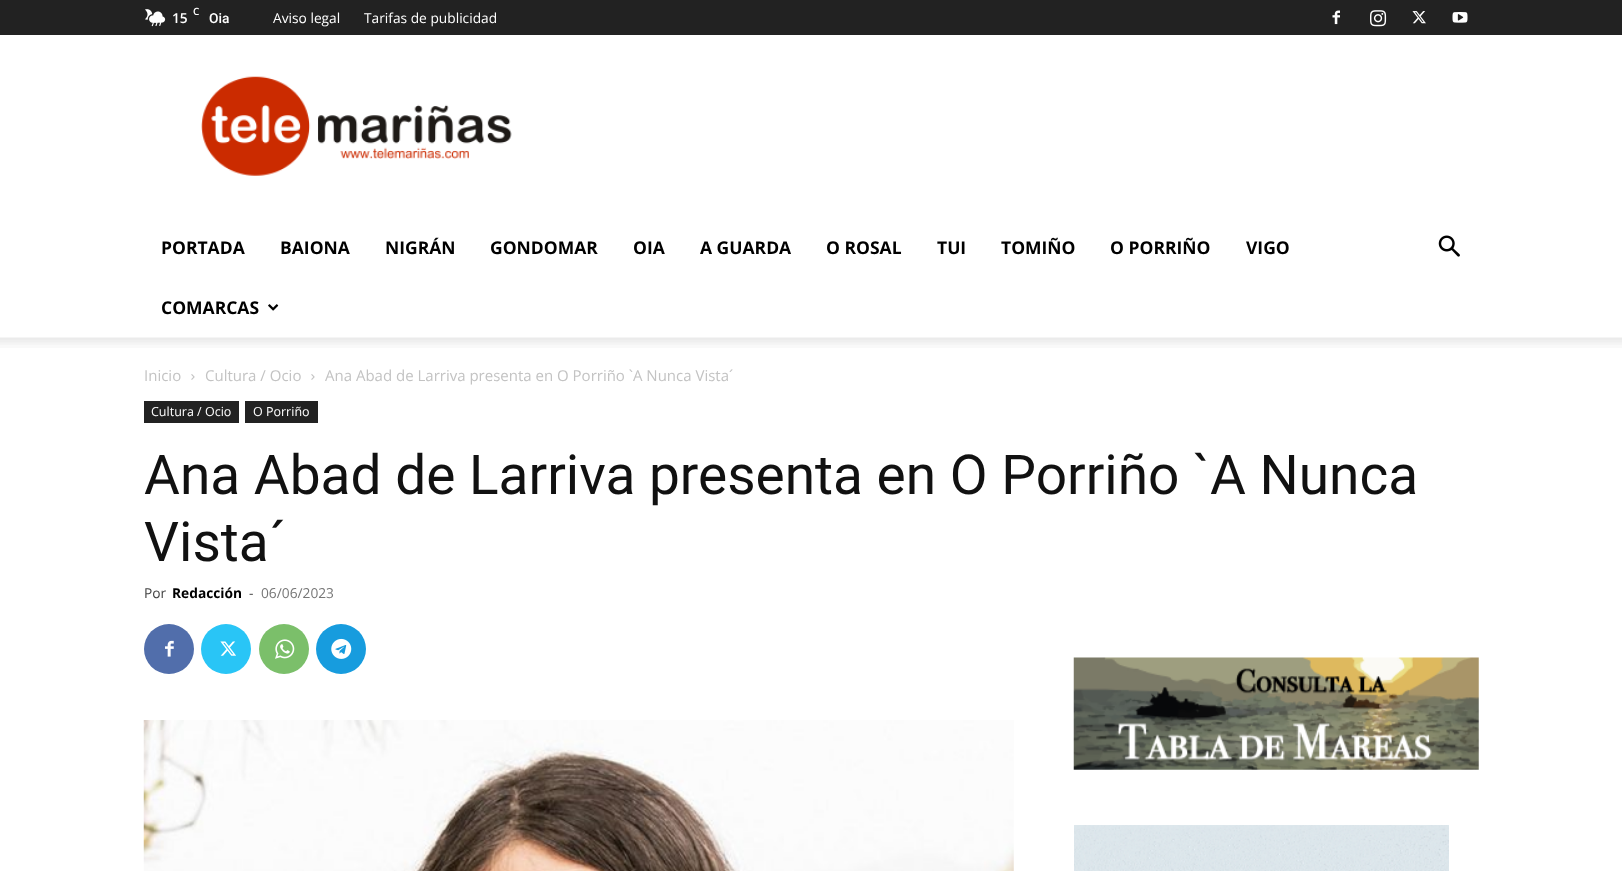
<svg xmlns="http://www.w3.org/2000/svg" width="1622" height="871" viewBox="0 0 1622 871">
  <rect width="100%" height="100%" fill="#fff"/>
  <path d="M0 0h1622v35H0z" fill="#222"/>
  <image x="145" y="9" width="21" height="18" href="img/1.png"/>
  <image x="1332" y="10" width="8" height="15" href="img/2.png"/>
  <image x="1370" y="10" width="17" height="17" href="img/3.png"/>
  <image x="1412" y="11" width="14" height="13" href="img/4.png"/>
  <image x="1452" y="12" width="16" height="11" href="img/5.png"/>
  <image x="201" y="76" width="311" height="100" href="img/6.png"/>
  <image x="268" y="304" width="11" height="7" href="img/7.png"/>
  <image x="1438" y="235" width="22" height="22" href="img/8.png"/>
  <image x="0" y="337" width="1622" height="11" href="img/9.png"/>
  <image x="191" y="374" width="4" height="6" href="img/10.png"/>
  <image x="311" y="374" width="4" height="6" href="img/10.png"/>
  <path d="M144 401h95v22H144z" fill="#222"/>
  <path d="M245 401h73v22H245z" fill="#222"/>
  <circle cx="169" cy="649" r="25" fill="#516eab"/>
  <image x="165" y="640" width="9" height="17" href="img/11.png"/>
  <circle cx="226" cy="649" r="25" fill="#29c5f6"/>
  <image x="220" y="641" width="16" height="15" href="img/12.png"/>
  <circle cx="284" cy="649" r="25" fill="#7bbf6a"/>
  <image x="275" y="639" width="20" height="20" href="img/13.png"/>
  <circle cx="341" cy="649" r="25" fill="#179cde"/>
  <image x="331" y="638" width="21" height="21" href="img/14.png"/>
  <image x="143" y="720" width="871" height="151" href="img/15.png"/>
  <image x="1073" y="657" width="406" height="113" href="img/16.png"/>
  <image x="1074" y="825" width="375" height="46" href="img/17.png"/>
  <text x="193" y="15" font-family="Open Sans" font-size="10" font-weight="600" fill="#fff">C</text>
  <text x="172" y="23" font-family="Open Sans" font-size="13.75" font-weight="600" fill="#fff">15</text>
  <text x="209" y="23" font-family="Roboto" font-size="13.75" font-weight="500" fill="#fff">Oia</text>
  <g font-family="Open Sans" font-size="13.75" fill="#fff">
    <text x="273" y="23">Aviso legal</text>
    <text x="364" y="23">Tarifas de publicidad</text>
  </g>
  <g font-family="Open Sans" font-size="17.5" font-weight="bold" fill="#000">
    <text x="161" y="254">PORTADA</text>
    <text x="280" y="254">BAIONA</text>
    <text x="385" y="254">NIGRÁN</text>
    <text x="490" y="254">GONDOMAR</text>
    <text x="633" y="254">OIA</text>
    <text x="700" y="254">A GUARDA</text>
    <text x="826" y="254">O ROSAL</text>
    <text x="937" y="254">TUI</text>
    <text x="1001" y="254">TOMIÑO</text>
    <text x="1110" y="254">O PORRIÑO</text>
    <text x="1246" y="254">VIGO</text>
    <text x="161" y="314">COMARCAS</text>
  </g>
  <g font-family="Open Sans" font-size="15" fill="#c3c3c3">
    <text x="144" y="381">Inicio</text>
    <text x="205" y="381">Cultura / Ocio</text>
    <text x="325" y="381">Ana Abad de Larriva presenta en O Porriño `A Nunca Vista´</text>
  </g>
  <g font-family="Open Sans" font-size="12.5" fill="#fff">
    <text x="151" y="416">Cultura / Ocio</text>
    <text x="253" y="416">O Porriño</text>
  </g>
  <g font-family="Roboto" font-size="55" fill="#111">
    <text x="144" y="494">Ana Abad de Larriva presenta en O Porriño `A Nunca</text>
    <text x="144" y="561">Vista´</text>
  </g>
  <text x="144" y="598" font-family="Open Sans" font-size="13.75" fill="#444">Por</text>
  <text x="172" y="598" font-family="Open Sans" font-size="13.75" font-weight="bold" fill="#000">Redacción</text>
  <text x="249" y="598" font-family="Open Sans" font-size="13.75" fill="#444">-</text>
  <text x="261" y="598" font-family="Open Sans" font-size="13.75" fill="#767676">06/06/2023</text>
</svg>
